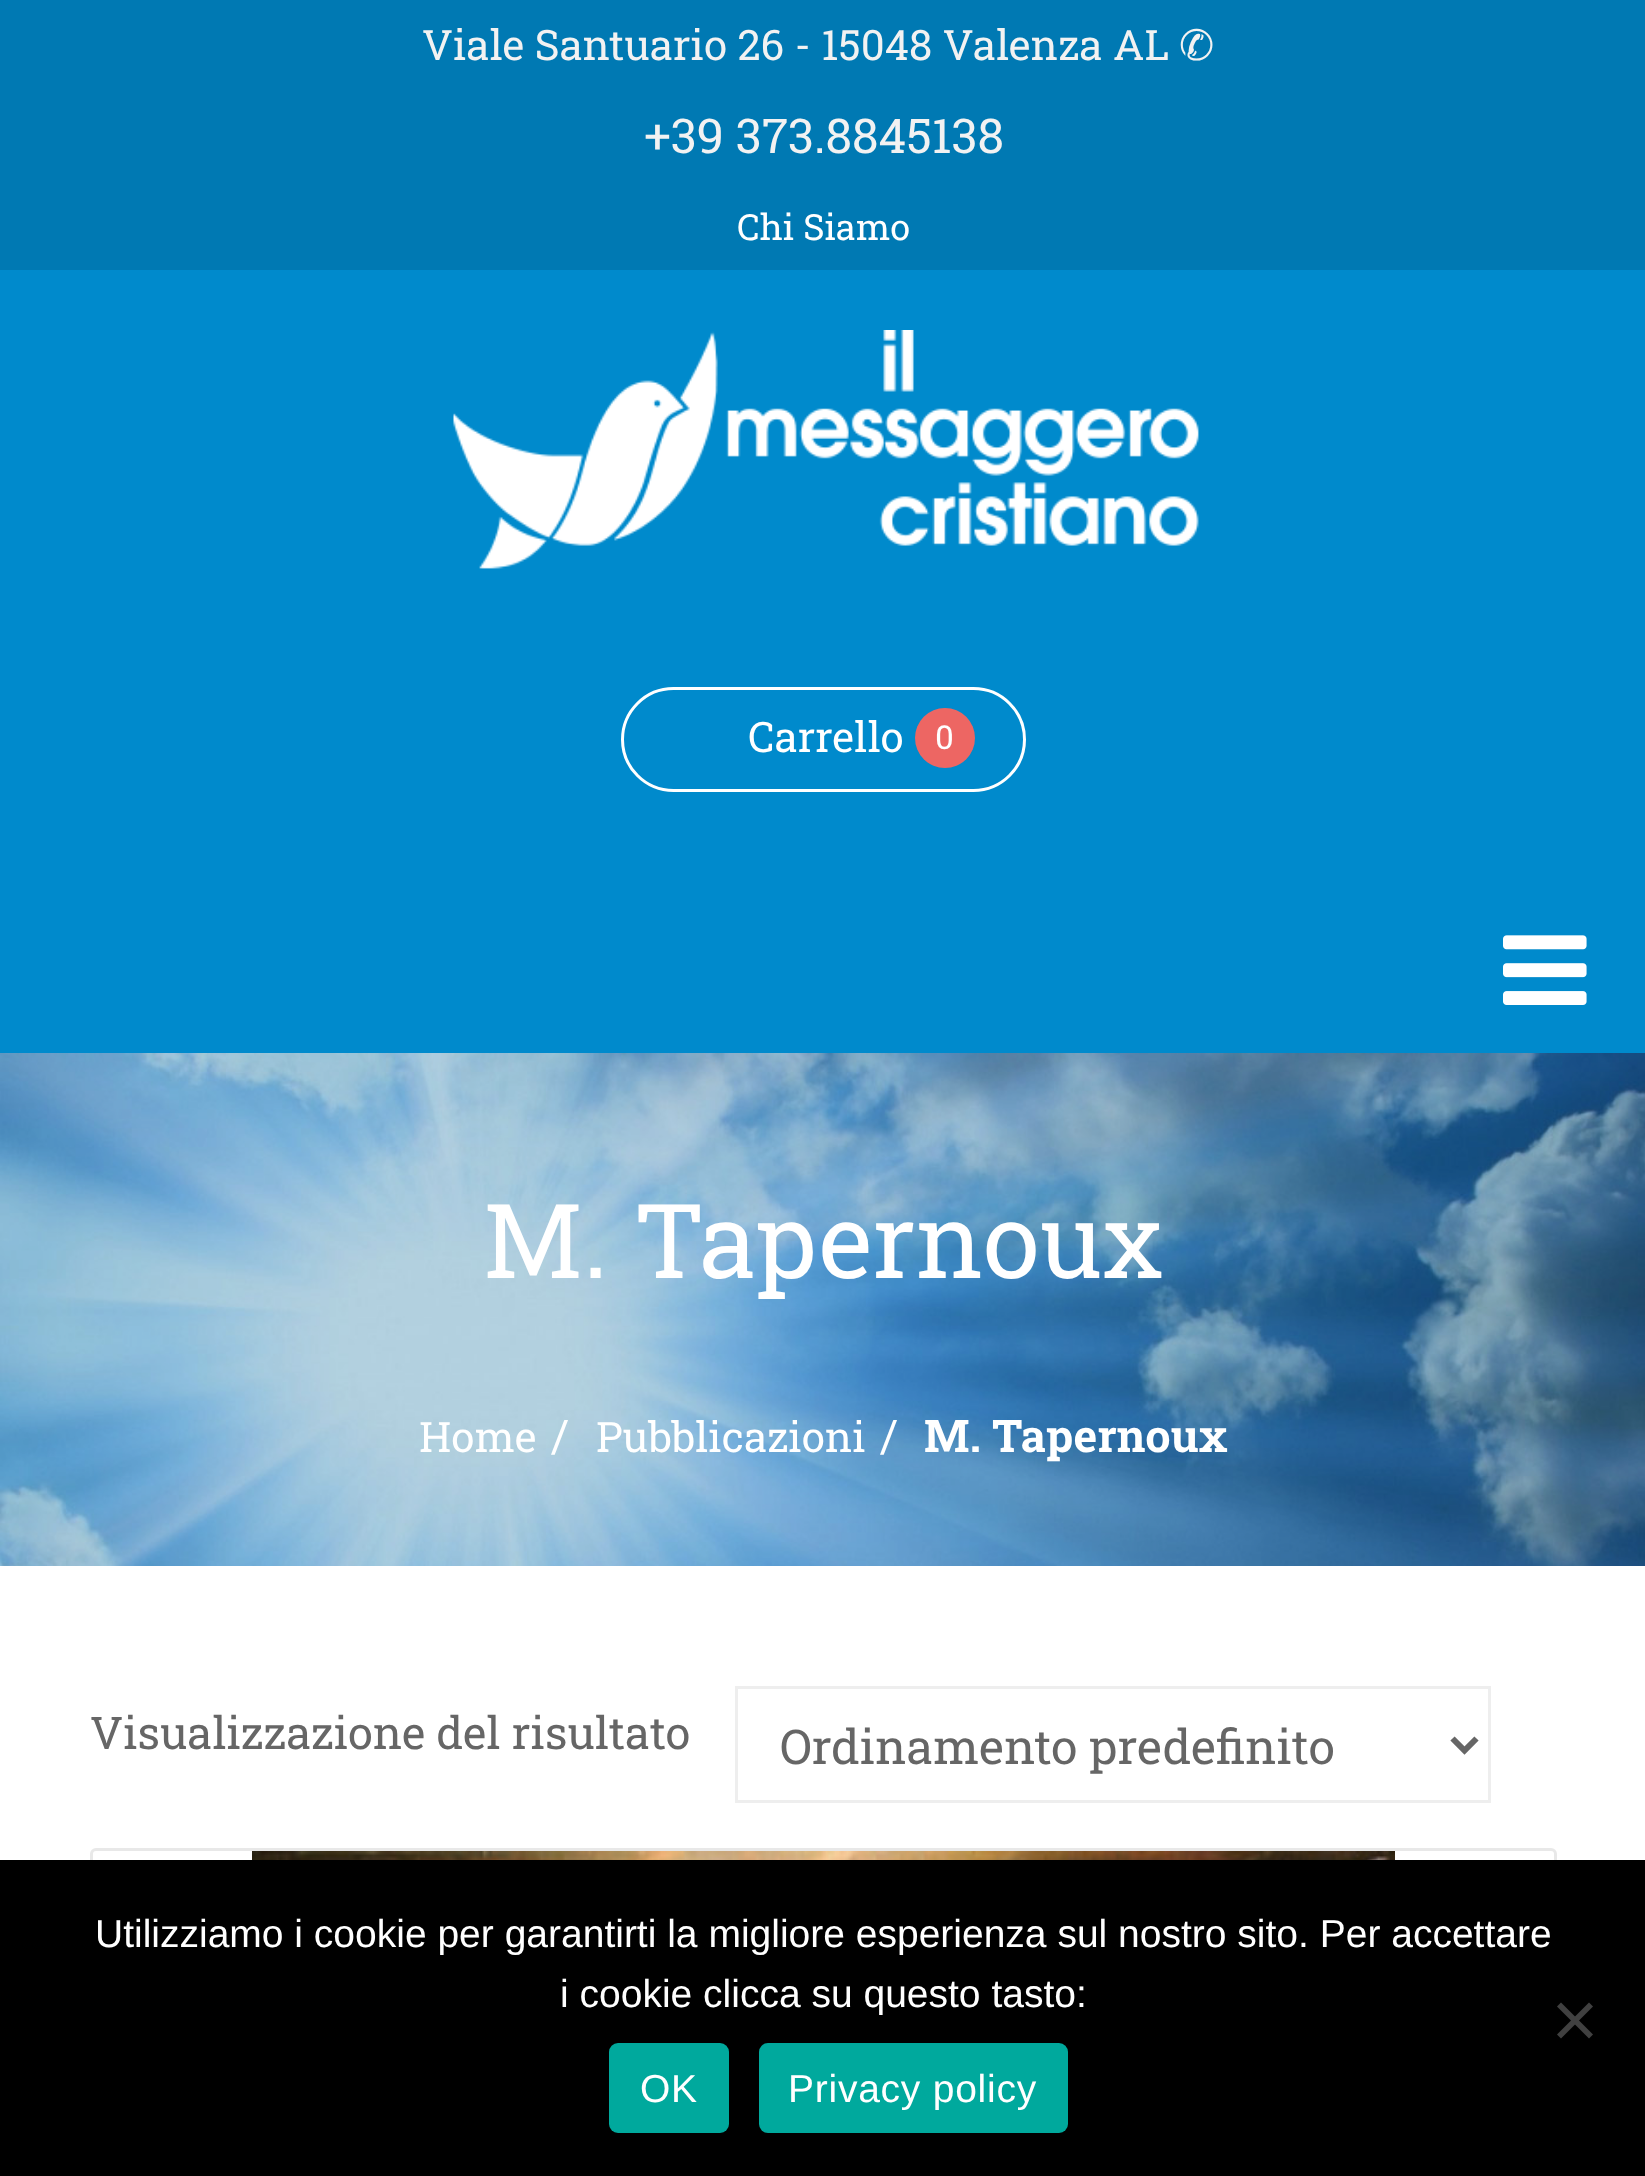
<svg xmlns="http://www.w3.org/2000/svg" width="1645" height="2176" viewBox="0 0 1645 2176">
  <rect width="100%" height="100%" fill="#fff"/>
  <path d="M0 0h1645v270H0z" fill="#0079b3"/>
  <path d="M0 270h1645v783H0z" fill="#008acc"/>
  <image x="453" y="330" width="746" height="239" href="img/1.png"/>
  <rect x="622.5" y="688.5" width="402" height="102" rx="51" fill="none" stroke="#fff" stroke-width="3"/>
  <circle cx="945" cy="738" r="30" fill="#ed6663"/>
  <image x="1503" y="935" width="84" height="70" href="img/2.png"/>
  <image x="0" y="1053" width="1645" height="513" href="img/3.png"/>
  <path d="M736.5 1687.5h753v114H736.5z" fill="none" stroke="#eee" stroke-width="3"/>
  <path d="M1452.5 1738.5L1464.5 1750.5L1476.5 1738.5" fill="none" stroke="#666" stroke-width="6"/>
  <rect x="91.5" y="1849.5" width="1464" height="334" rx="4.5" fill="none" stroke="#e8e8e8" stroke-width="3"/>
  <image x="252" y="1851" width="1143" height="9" href="img/4.png"/>
  <path d="M0 1860h1645v316H0z" fill="#000"/>
  <path d="M1589 2002.5L1593 2006.5L1561 2038.5L1557 2034.5Z" fill="#404040"/>
  <path d="M1557 2006.5L1561 2002.5L1593 2034.5L1589 2038.5Z" fill="#404040"/>
  <rect x="609" y="2043" width="120" height="90" rx="9" fill="#00a99d"/>
  <rect x="759" y="2043" width="309" height="90" rx="9" fill="#00a99d"/>
  <text x="422" y="60" font-family="Roboto Slab" font-size="42" fill="#f2f2f2">Viale Santuario 26 - 15048 Valenza AL</text>
  <text x="1179" y="60" font-family="DejaVu Sans" font-size="42" fill="#f2f2f2">✆</text>
  <text x="644" y="153" font-family="Roboto Slab" font-size="48" fill="#f2f2f2">+39 373.8845138</text>
  <text x="737" y="240" font-family="Roboto Slab" font-size="36" fill="#fff">Chi Siamo</text>
  <text x="748" y="752" font-family="Roboto Slab" font-size="42" fill="#fff">Carrello</text>
  <text x="935" y="749" font-family="Roboto Slab" font-size="33" fill="#fff">0</text>
  <text x="483" y="1278" font-family="Roboto Slab" font-size="103.5" fill="#fff">M. Tapernoux</text>
  <text x="419" y="1452" font-family="Roboto Slab" font-size="42" fill="#fff">Home</text>
  <text x="551" y="1452" font-family="Roboto Slab" font-size="45" fill="#fff">/</text>
  <text x="596" y="1452" font-family="Roboto Slab" font-size="42" fill="#fff">Pubblicazioni</text>
  <text x="880" y="1452" font-family="Roboto Slab" font-size="45" fill="#fff">/</text>
  <text x="924" y="1452" font-family="Roboto Slab" font-size="45" font-weight="bold" fill="#fff">M. Tapernoux</text>
  <text x="90" y="1749" font-family="Roboto Slab" font-size="45" fill="#666">Visualizzazione del risultato</text>
  <text x="780" y="1764" font-family="Roboto Slab" font-size="48" fill="#666">Ordinamento predefinito</text>
  <g font-family="Liberation Sans" font-size="39" fill="#fff">
    <text x="95" y="1947">Utilizziamo i cookie per garantirti la migliore esperienza sul nostro sito. Per accettare</text>
    <text x="560" y="2007">i cookie clicca su questo tasto:</text>
  </g>
  <g font-family="Liberation Sans" font-size="39" letter-spacing="0.75" fill="#fff">
    <text x="640" y="2102">OK</text>
    <text x="788" y="2102">Privacy policy</text>
  </g>
</svg>
